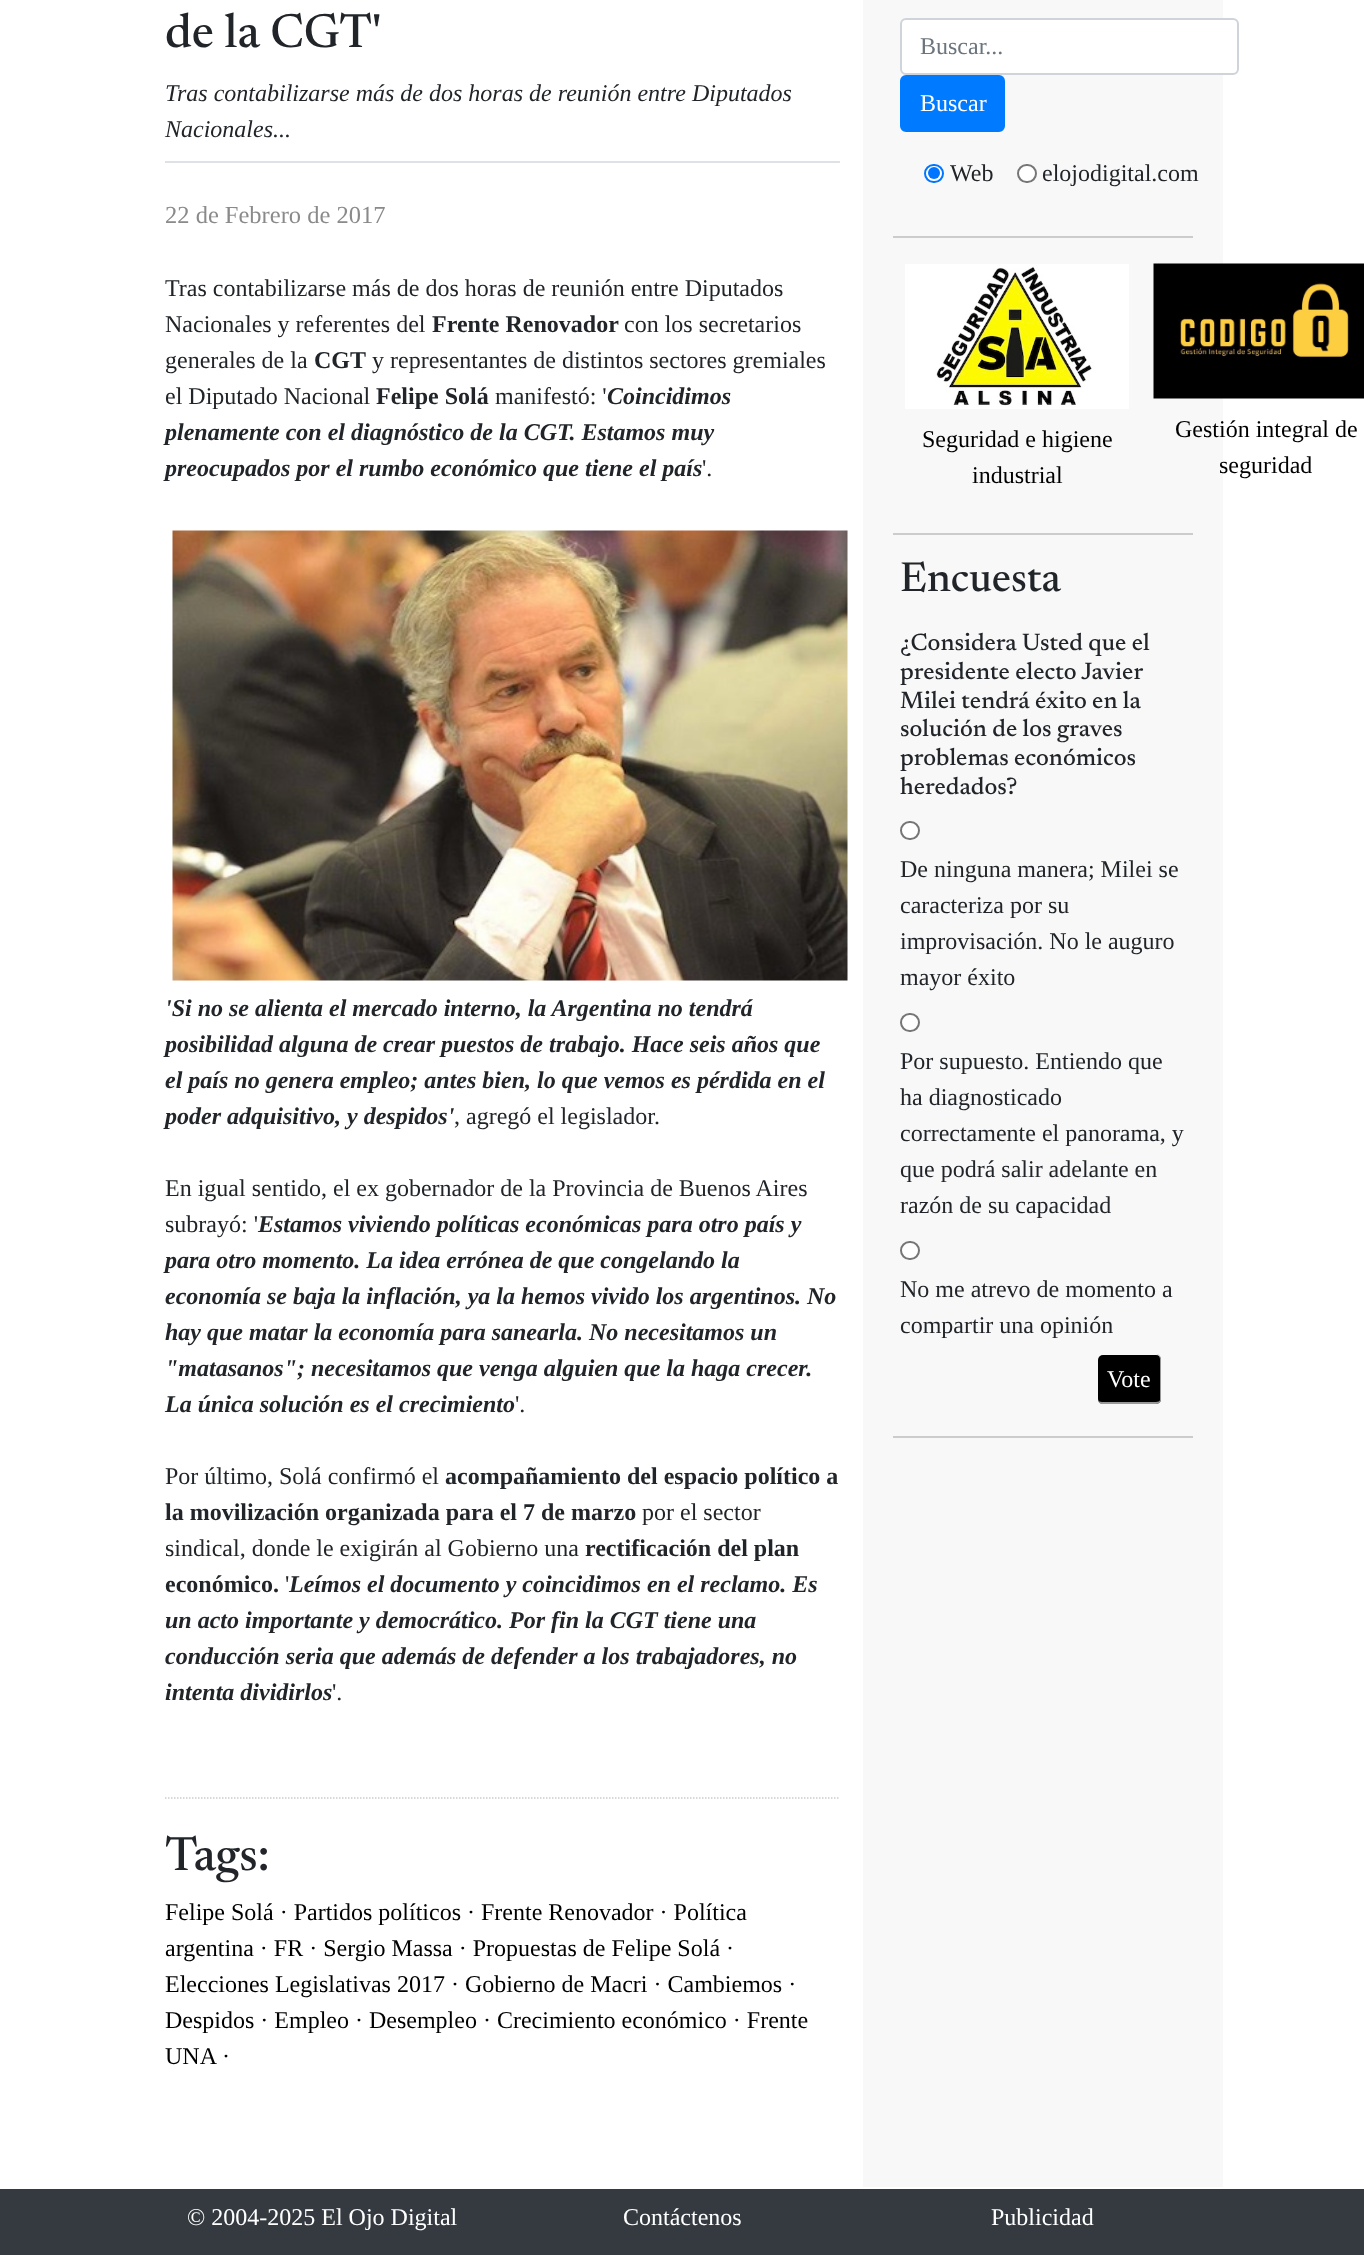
<svg xmlns="http://www.w3.org/2000/svg" width="1364" height="2255" viewBox="0 0 1364 2255">
  <rect width="100%" height="100%" fill="#fff"/>
  <path d="M165 161h675v2H165z" fill="#dee2e6"/>
  <image x="172" y="530" width="676" height="451" href="img/1.png"/>
  <path d="M165 1798H840" fill="none" stroke="#ccc" stroke-width="1.5" stroke-dasharray="1.5 1.5"/>
  <path d="M863 0h360v2187H863z" fill="#f8f8f8"/>
  <path d="M893 236h300v2H893z" fill="#ccc"/>
  <rect x="901" y="19" width="337" height="55" rx="5" fill="#fff" stroke="#ced4da" stroke-width="2"/>
  <rect x="901" y="76" width="103" height="55" rx="5" fill="#007bff" stroke="#007bff" stroke-width="2"/>
  <rect x="925" y="165" width="18" height="17" rx="8.5" fill="#fff" stroke="#0075ff" stroke-width="2"/>
  <circle cx="934" cy="173" r="6" fill="#0075ff"/>
  <rect x="1018" y="165" width="18" height="17" rx="8.5" fill="#fff" stroke="#767676" stroke-width="2"/>
  <path d="M893 533h300v2H893z" fill="#ccc"/>
  <image x="905" y="264" width="224" height="145" href="img/2.png"/>
  <image x="1153" y="263" width="211" height="136" href="img/3.png"/>
  <path d="M893 1436h300v2H893z" fill="#ccc"/>
  <rect x="901" y="822" width="18" height="17" rx="8.5" fill="#fff" stroke="#767676" stroke-width="2"/>
  <rect x="901" y="1014" width="18" height="17" rx="8.5" fill="#fff" stroke="#767676" stroke-width="2"/>
  <rect x="901" y="1242" width="18" height="17" rx="8.5" fill="#fff" stroke="#767676" stroke-width="2"/>
  <rect x="1098" y="1355" width="63" height="49" rx="5" fill="#000"/>
  <path d="M1102 1354H1156C1159 1354 1161 1357 1161 1359V1400C1161 1402 1159 1404 1156 1404H1102C1100 1404 1098 1402 1098 1400V1359C1098 1357 1100 1354 1102 1354ZM1102 1354H1156C1158 1354 1160 1357 1160 1359V1400C1160 1401 1158 1402 1156 1402H1102C1100 1402 1098 1401 1098 1400V1359C1098 1357 1100 1354 1102 1354Z" fill="#999" fill-rule="evenodd"/>
  <path d="M0 2189h1364v66H0z" fill="#343a40"/>
  <text x="165" y="47" font-family="Newsreader" font-size="48" font-weight="500" fill="#212529">de la CGT'</text>
  <g font-family="Liberation Serif" font-size="24" font-style="italic" fill="#212529">
    <text x="165" y="101">Tras contabilizarse más de dos horas de reunión entre Diputados</text>
    <text x="165" y="137">Nacionales...</text>
  </g>
  <text x="165" y="223" font-family="Liberation Serif" font-size="24.5" fill="#8a8a8a">22 de Febrero de 2017</text>
  <g font-family="Liberation Serif" font-size="24" fill="#212529">
    <text x="165" y="296">Tras contabilizarse más de dos horas de reunión entre Diputados</text>
    <text x="165" y="332">Nacionales y referentes del</text>
  </g>
  <text x="432" y="332" font-family="Liberation Serif" font-size="24" font-weight="bold" fill="#212529">Frente Renovador</text>
  <g font-family="Liberation Serif" font-size="24" fill="#212529">
    <text x="624" y="332">con los secretarios</text>
    <text x="165" y="368">generales de la</text>
  </g>
  <text x="314" y="368" font-family="Liberation Serif" font-size="24" font-weight="bold" fill="#212529">CGT</text>
  <g font-family="Liberation Serif" font-size="24" fill="#212529">
    <text x="372" y="368">y representantes de distintos sectores gremiales</text>
    <text x="165" y="404">el Diputado Nacional</text>
  </g>
  <text x="376" y="404" font-family="Liberation Serif" font-size="24" font-weight="bold" fill="#212529">Felipe Solá</text>
  <text x="495" y="404" font-family="Liberation Serif" font-size="24" fill="#212529">manifestó: '</text>
  <g font-family="Liberation Serif" font-size="24" font-weight="bold" font-style="italic" fill="#212529">
    <text x="607" y="404">Coincidimos</text>
    <text x="165" y="440">plenamente con el diagnóstico de la CGT. Estamos muy</text>
    <text x="165" y="476">preocupados por el rumbo económico que tiene el país</text>
  </g>
  <text x="702" y="476" font-family="Liberation Serif" font-size="24" fill="#212529">'.</text>
  <g font-family="Liberation Serif" font-size="24" font-weight="bold" font-style="italic" fill="#212529">
    <text x="165" y="1016">'Si no se alienta el mercado interno, la Argentina no tendrá</text>
    <text x="165" y="1052">posibilidad alguna de crear puestos de trabajo. Hace seis años que</text>
    <text x="165" y="1088">el país no genera empleo; antes bien, lo que vemos es pérdida en el</text>
    <text x="165" y="1124">poder adquisitivo, y despidos'</text>
  </g>
  <g font-family="Liberation Serif" font-size="24" fill="#212529">
    <text x="454" y="1124">, agregó el legislador.</text>
    <text x="165" y="1196">En igual sentido, el ex gobernador de la Provincia de Buenos Aires</text>
    <text x="165" y="1232">subrayó: '</text>
  </g>
  <g font-family="Liberation Serif" font-size="24" font-weight="bold" font-style="italic" fill="#212529">
    <text x="258" y="1232">Estamos viviendo políticas económicas para otro país y</text>
    <text x="165" y="1268">para otro momento. La idea errónea de que congelando la</text>
    <text x="165" y="1304">economía se baja la inflación, ya la hemos vivido los argentinos. No</text>
    <text x="165" y="1340">hay que matar la economía para sanearla. No necesitamos un</text>
    <text x="165" y="1376">"matasanos"; necesitamos que venga alguien que la haga crecer.</text>
    <text x="165" y="1412">La única solución es el crecimiento</text>
  </g>
  <g font-family="Liberation Serif" font-size="24" fill="#212529">
    <text x="515" y="1412">'.</text>
    <text x="165" y="1484">Por último, Solá confirmó el</text>
  </g>
  <g font-family="Liberation Serif" font-size="24" font-weight="bold" fill="#212529">
    <text x="445" y="1484">acompañamiento del espacio político a</text>
    <text x="165" y="1520">la movilización organizada para el 7 de marzo</text>
  </g>
  <g font-family="Liberation Serif" font-size="24" fill="#212529">
    <text x="642" y="1520">por el sector</text>
    <text x="165" y="1556">sindical, donde le exigirán al Gobierno una</text>
  </g>
  <g font-family="Liberation Serif" font-size="24" font-weight="bold" fill="#212529">
    <text x="585" y="1556">rectificación del plan</text>
    <text x="165" y="1592">económico.</text>
  </g>
  <text x="285" y="1592" font-family="Liberation Serif" font-size="24" fill="#212529">'</text>
  <g font-family="Liberation Serif" font-size="24" font-weight="bold" font-style="italic" fill="#212529">
    <text x="289" y="1592">Leímos el documento y coincidimos en el reclamo. Es</text>
    <text x="165" y="1628">un acto importante y democrático. Por fin la CGT tiene una</text>
    <text x="165" y="1664">conducción seria que además de defender a los trabajadores, no</text>
    <text x="165" y="1700">intenta dividirlos</text>
  </g>
  <text x="332" y="1700" font-family="Liberation Serif" font-size="24" fill="#212529">'.</text>
  <text x="165" y="1870" font-family="Newsreader" font-size="48" font-weight="500" fill="#212529">Tags:</text>
  <g font-family="Liberation Serif" font-size="24" fill="#000">
    <text x="165" y="1920">Felipe Solá · Partidos políticos · Frente Renovador · Política</text>
    <text x="165" y="1956">argentina · FR · Sergio Massa · Propuestas de Felipe Solá ·</text>
    <text x="165" y="1992">Elecciones Legislativas 2017 · Gobierno de Macri · Cambiemos ·</text>
    <text x="165" y="2028">Despidos · Empleo · Desempleo · Crecimiento económico · Frente</text>
    <text x="165" y="2064">UNA</text>
    <text x="222" y="2064">·</text>
  </g>
  <text x="920" y="54" font-family="Liberation Serif" font-size="24" fill="#6c757d">Buscar...</text>
  <text x="920" y="111" font-family="Liberation Serif" font-size="24" fill="#fff">Buscar</text>
  <g font-family="Liberation Serif" font-size="24" fill="#212529">
    <text x="950" y="181">Web</text>
    <text x="1042" y="181">elojodigital.com</text>
  </g>
  <g font-family="Liberation Serif" font-size="24" fill="#000">
    <text x="922" y="447">Seguridad e higiene</text>
    <text x="972" y="483">industrial</text>
    <text x="1175" y="437">Gestión integral de</text>
    <text x="1219" y="473">seguridad</text>
  </g>
  <text x="900" y="591" font-family="'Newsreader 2'" font-size="42" font-weight="500" fill="#212529">Encuesta</text>
  <g font-family="'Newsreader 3'" font-size="24" font-weight="500" fill="#212529">
    <text x="900" y="650">¿Considera Usted que el</text>
    <text x="900" y="679">presidente electo Javier</text>
    <text x="900" y="708">Milei tendrá éxito en la</text>
    <text x="900" y="736">solución de los graves</text>
    <text x="900" y="765">problemas económicos</text>
    <text x="900" y="794">heredados?</text>
  </g>
  <g font-family="Liberation Serif" font-size="24" fill="#212529">
    <text x="900" y="877">De ninguna manera; Milei se</text>
    <text x="900" y="913">caracteriza por su</text>
    <text x="900" y="949">improvisación. No le auguro</text>
    <text x="900" y="985">mayor éxito</text>
    <text x="900" y="1069">Por supuesto. Entiendo que</text>
    <text x="900" y="1105">ha diagnosticado</text>
    <text x="900" y="1141">correctamente el panorama, y</text>
    <text x="900" y="1177">que podrá salir adelante en</text>
    <text x="900" y="1213">razón de su capacidad</text>
    <text x="900" y="1297">No me atrevo de momento a</text>
    <text x="900" y="1333">compartir una opinión</text>
  </g>
  <g font-family="Liberation Serif" font-size="24" fill="#fff">
    <text x="1107" y="1387">Vote</text>
    <text x="187" y="2225">© 2004-2025 El Ojo Digital</text>
    <text x="623" y="2225">Contáctenos</text>
    <text x="991" y="2225">Publicidad</text>
  </g>
</svg>
